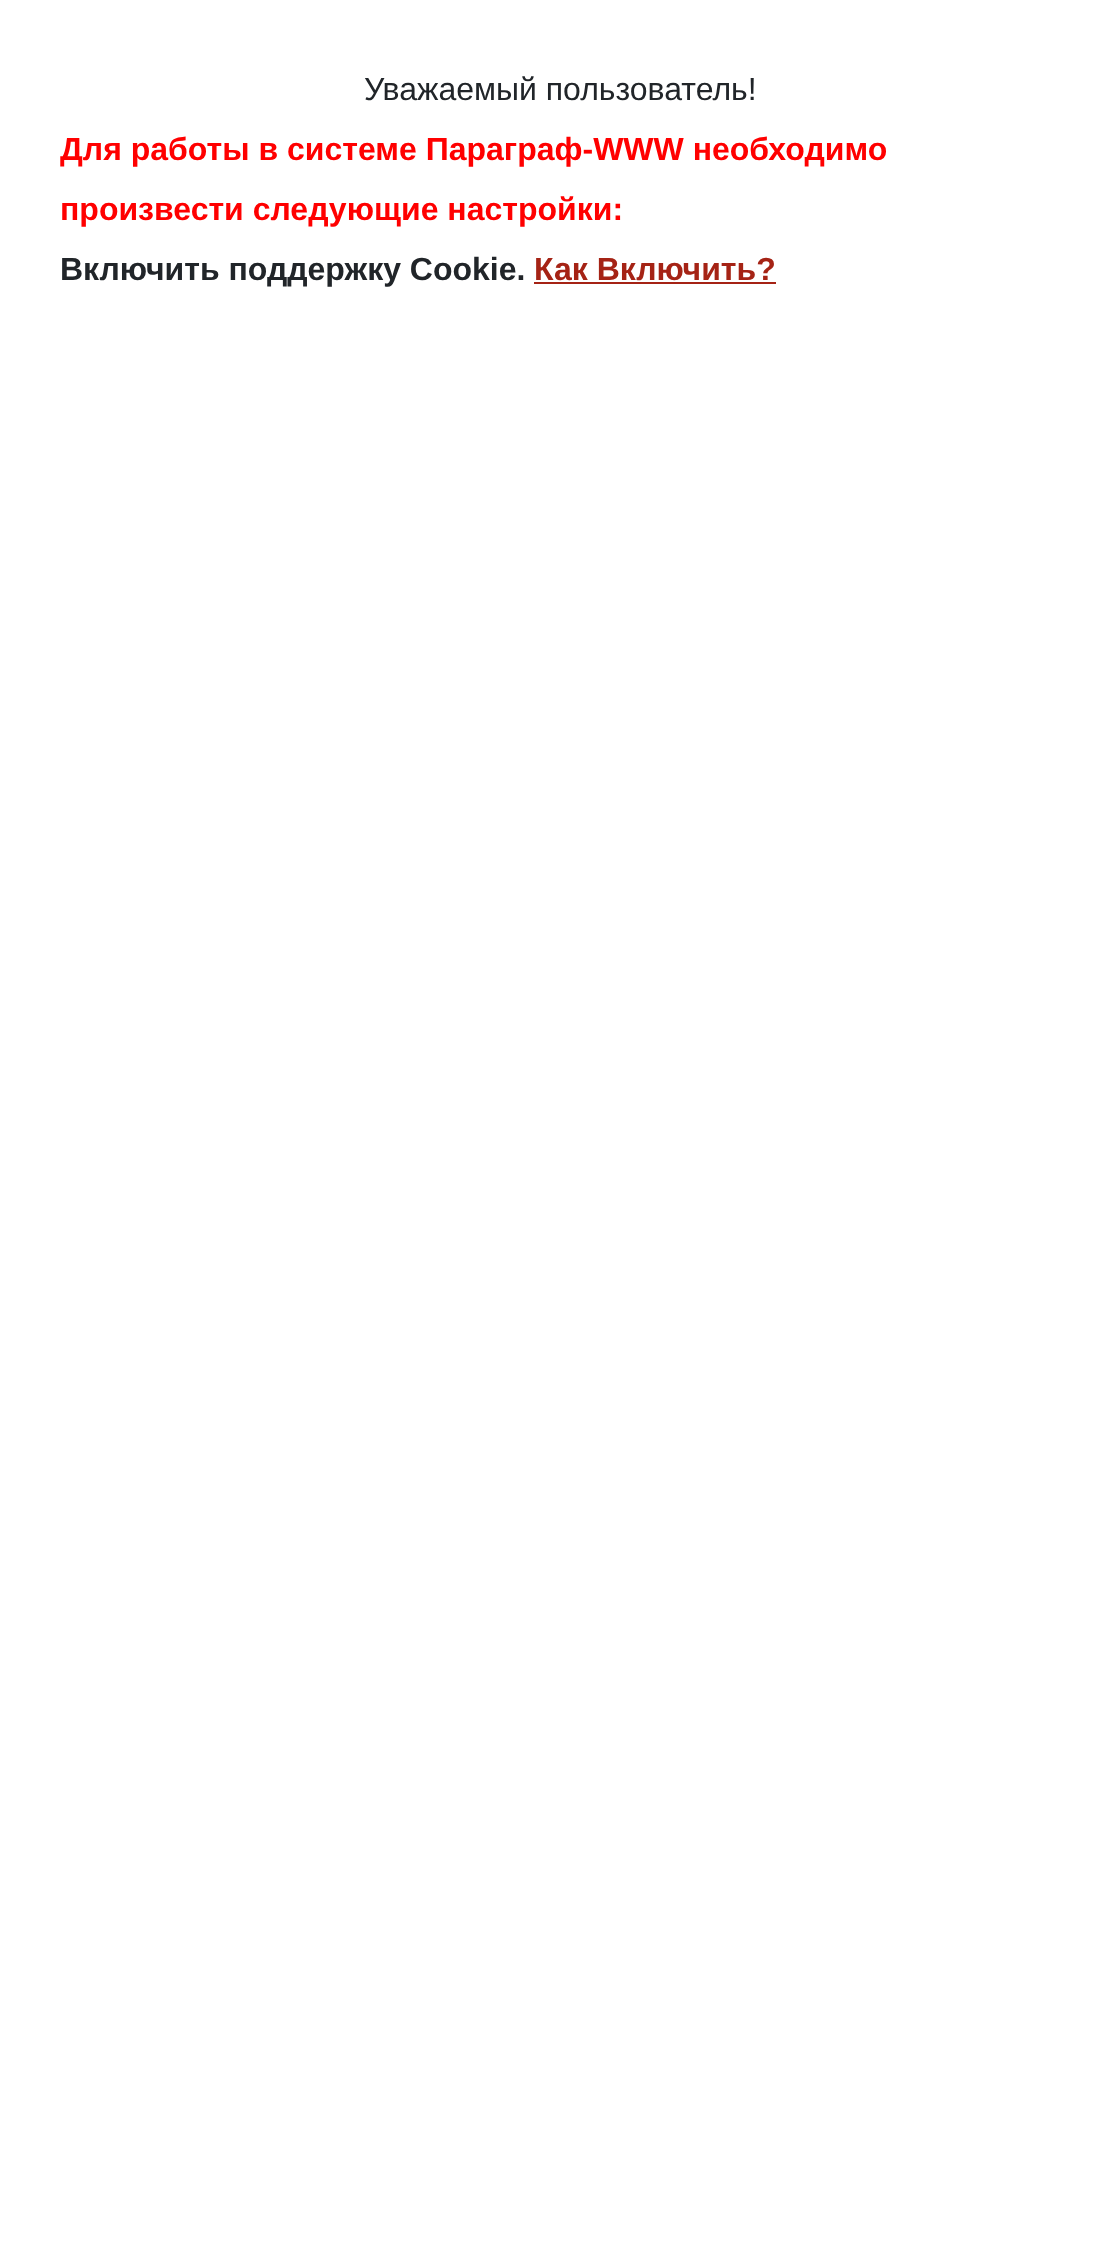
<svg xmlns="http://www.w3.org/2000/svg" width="1119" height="2267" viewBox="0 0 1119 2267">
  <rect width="100%" height="100%" fill="#fff"/>
  <path d="M534 282h242v2H534z" fill="#a52315"/>
  <text x="364" y="100" font-family="Liberation Sans" font-size="32" fill="#212529">Уважаемый пользователь!</text>
  <g font-family="Liberation Sans" font-size="32" font-weight="bold" fill="#f00">
    <text x="60" y="160">Для работы в системе Параграф-WWW необходимо</text>
    <text x="60" y="220">произвести следующие настройки:</text>
  </g>
  <text x="60" y="280" font-family="Liberation Sans" font-size="32" font-weight="bold" fill="#212529">Включить поддержку Cookie.</text>
  <text x="534" y="280" font-family="Liberation Sans" font-size="32" font-weight="bold" fill="#a52315">Как Включить?</text>
</svg>
